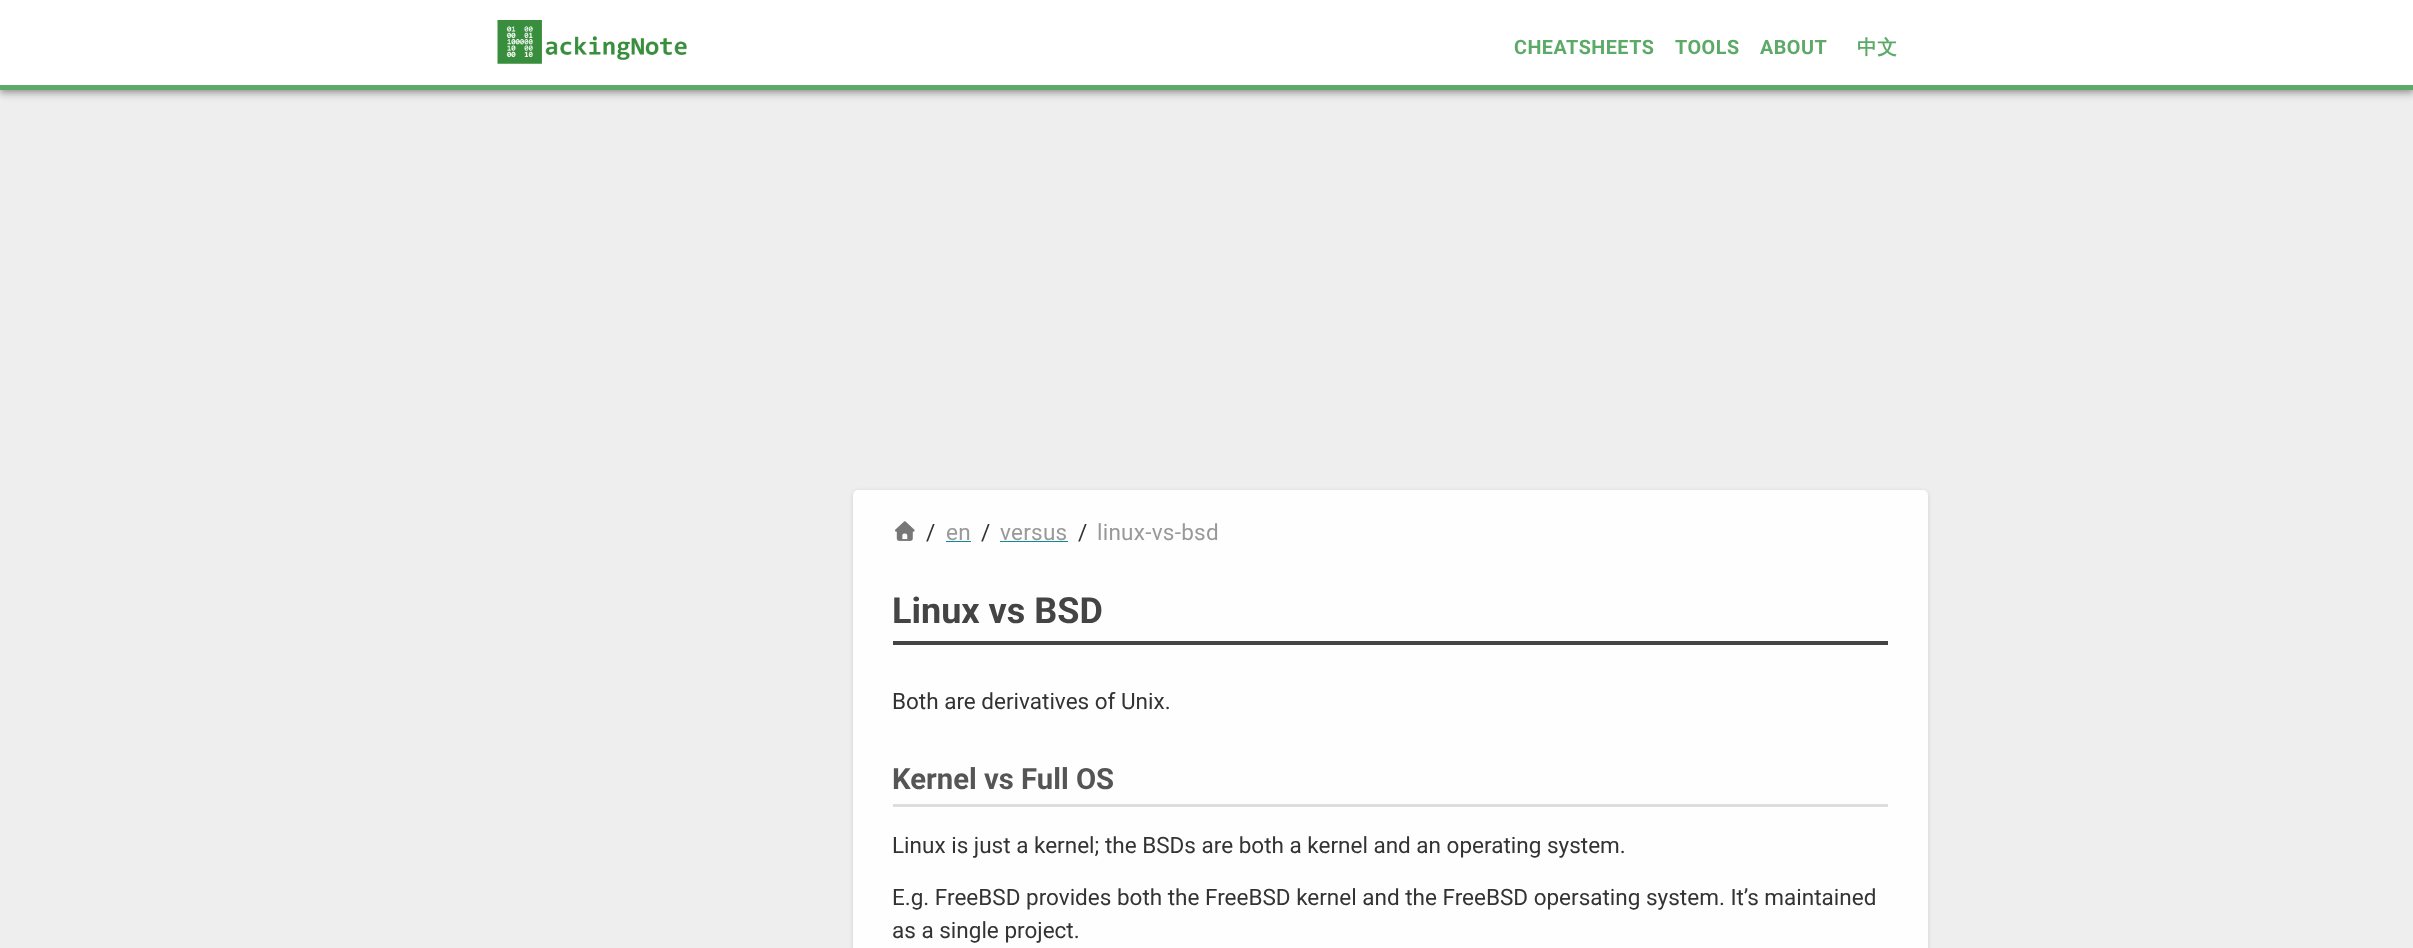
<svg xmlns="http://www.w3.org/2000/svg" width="2413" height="948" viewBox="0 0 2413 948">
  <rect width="100%" height="100%" fill="#eee"/>
  <path d="M0 1h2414v90H0z" fill="#0000001f" filter="blur(6px)"/>
  <path d="M0 5h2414v90H0z" fill="#00000024" filter="blur(3px)"/>
  <path d="M1 4h2412v87H1z" fill="#00000033" filter="blur(2.5px)"/>
  <path d="M0 0h2413v85H0z" fill="#fff"/>
  <path d="M0 85h2413v5H0z" fill="#5daa68"/>
  <image x="497" y="20" width="190" height="44" href="img/1.png"/>
  <rect x="853" y="491" width="1075" height="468" rx="5" fill="#0000001f" filter="blur(2px)"/>
  <rect x="853" y="491" width="1075" height="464" rx="5" fill="#00000024" filter="blur(0.5px)"/>
  <rect x="853" y="490" width="1075" height="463" rx="5" fill="#fefefe"/>
  <image x="895" y="521" width="20" height="20" href="img/2.png"/>
  <path d="M946 541h25v1H946z" fill="#0e899a"/>
  <path d="M1000 541h68v1H1000z" fill="#0e899a"/>
  <path d="M893 641h995v4H893z" fill="#444"/>
  <path d="M893 804h995v3H893z" fill="#ddd"/>
  <g font-family="Roboto" font-size="19.75" font-weight="bold" letter-spacing="0.5" fill="#5daa68">
    <text x="1514" y="54">CHEATSHEETS</text>
    <text x="1675" y="54">TOOLS</text>
    <text x="1760" y="54">ABOUT</text>
  </g>
  <text x="1857" y="54" font-family="WenQuanYi Zen Hei" font-size="19.75" font-weight="bold" letter-spacing="0.5" fill="#5daa68">中文</text>
  <text x="926" y="540" font-family="Roboto" font-size="22.5" letter-spacing="0.25" fill="#333">/</text>
  <text x="946" y="540" font-family="Roboto" font-size="22.5" letter-spacing="0.25" fill="#999">en</text>
  <text x="981" y="540" font-family="Roboto" font-size="22.5" letter-spacing="0.25" fill="#333">/</text>
  <text x="1000" y="540" font-family="Roboto" font-size="22.5" letter-spacing="0.25" fill="#999">versus</text>
  <text x="1078" y="540" font-family="Roboto" font-size="22.5" letter-spacing="0.25" fill="#333">/</text>
  <text x="1097" y="540" font-family="Roboto" font-size="22.5" letter-spacing="0.25" fill="#999">linux-vs-bsd</text>
  <text x="892" y="623" font-family="Roboto" font-size="36" font-weight="bold" fill="#444">Linux vs BSD</text>
  <text x="892" y="709" font-family="Roboto" font-size="22.5" fill="#333">Both are derivatives of Unix.</text>
  <text x="892" y="789" font-family="Roboto" font-size="29.25" font-weight="bold" fill="#555">Kernel vs Full OS</text>
  <g font-family="Roboto" font-size="22.5" fill="#333">
    <text x="892" y="853">Linux is just a kernel; the BSDs are both a kernel and an operating system.</text>
    <text x="892" y="905">E.g. FreeBSD provides both the FreeBSD kernel and the FreeBSD opersating system. It’s maintained</text>
    <text x="892" y="938">as a single project.</text>
  </g>
</svg>
